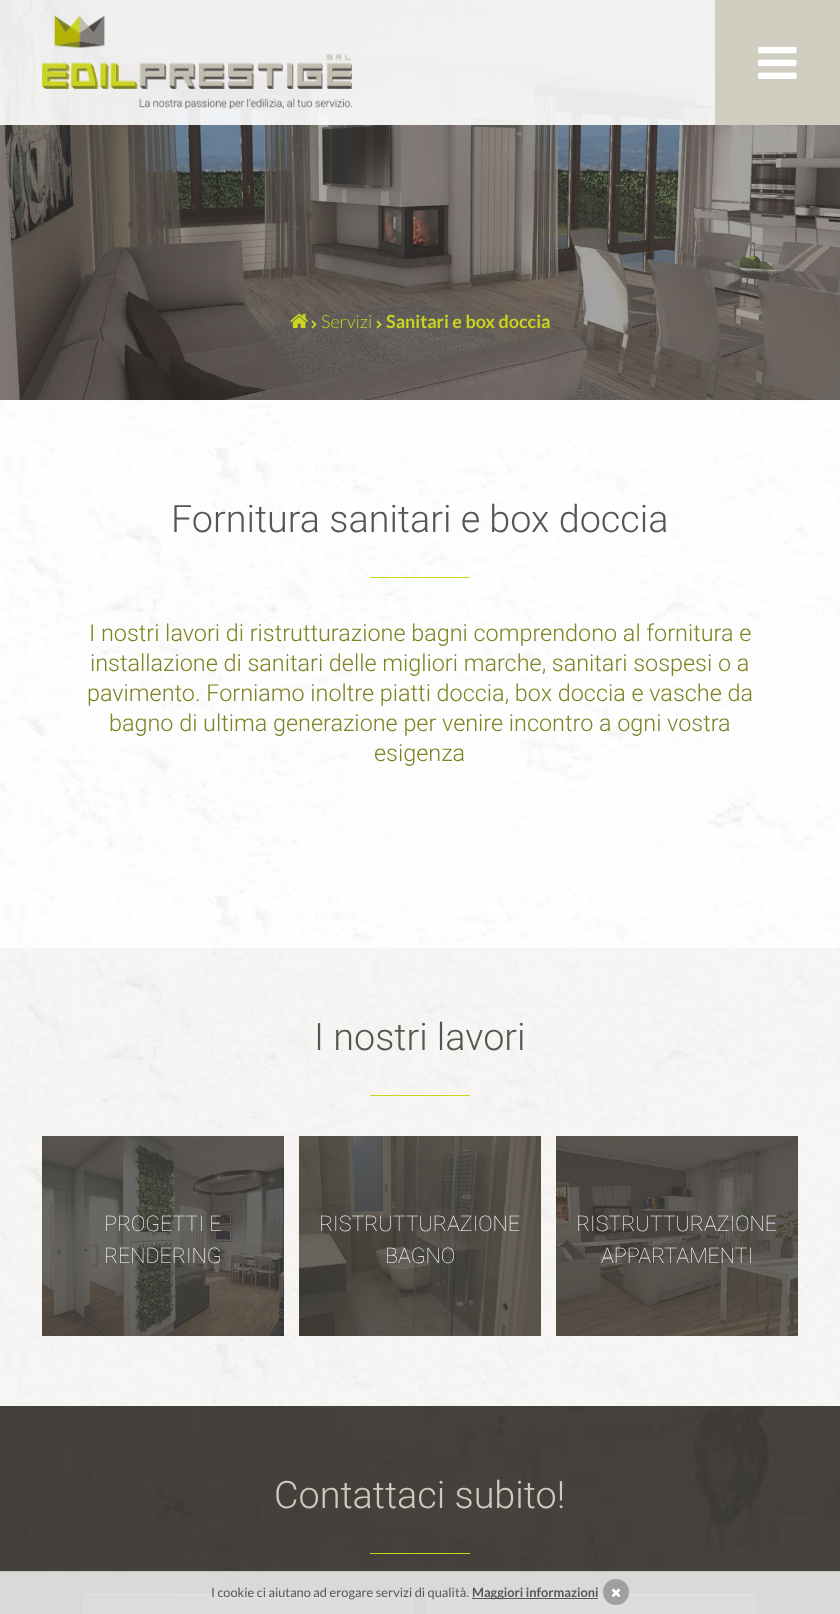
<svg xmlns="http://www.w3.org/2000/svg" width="840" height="1614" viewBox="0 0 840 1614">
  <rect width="100%" height="100%" fill="#fff"/>
  <image x="0" y="400" width="840" height="1006" href="img/1.png"/>
  <image x="0" y="0" width="840" height="400" href="img/4.png"/>
  <path d="M0 0h840v125H0z" fill="#ffffffe6"/>
  <image x="42" y="16" width="310" height="93" href="img/2.png"/>
  <path d="M715 0h125v125H715z" fill="#cdcabef2"/>
  <image x="758" y="46" width="39" height="33" href="img/3.png"/>
  <image x="290" y="313" width="18" height="15" href="img/5.png"/>
  <image x="311" y="320" width="6" height="9" href="img/6.png"/>
  <image x="376" y="320" width="6" height="9" href="img/7.png"/>
  <path d="M370 577h100v1H370z" fill="#cad421"/>
  <path d="M0 948h840v458H0z" fill="#cdcabe26"/>
  <path d="M370 1095h100v1H370z" fill="#cad421"/>
  <image x="42" y="1136" width="242" height="200" href="img/8.png"/>
  <image x="299" y="1136" width="242" height="200" href="img/9.png"/>
  <image x="556" y="1136" width="242" height="200" href="img/10.png"/>
  <image x="0" y="1406" width="840" height="208" href="img/11.png"/>
  <path d="M370 1553h100v1H370z" fill="#cad421"/>
  <path d="M84.5 1594.5h328v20H84.5z" fill="#ffffff1a" stroke="#6b6862"/>
  <path d="M427.5 1594.5h328v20H427.5z" fill="#ffffff1a" stroke="#6b6862"/>
  <path d="M0 1572h840v42H0z" fill="#ffffffcc"/>
  <path d="M0 1571h840v1H0z" fill="#c9c8c8"/>
  <path d="M472 1598h126v1H472z" fill="#575757"/>
  <circle cx="616" cy="1592" r="13" fill="#9d9fa0"/>
  <image x="611" y="1588" width="10" height="9" href="img/12.png"/>
  <text x="321" y="328" font-family="Lato" font-size="18" font-weight="300" fill="#cad421">Servizi</text>
  <text x="386" y="328" font-family="Lato" font-size="18" font-weight="bold" fill="#cad421">Sanitari e box doccia</text>
  <text x="171" y="532" font-family="Roboto" font-size="37.75" font-weight="300" fill="#585550">Fornitura sanitari e box doccia</text>
  <g font-family="Roboto" font-size="23.4" font-weight="300" fill="#7d8320">
    <text x="89" y="641">I nostri lavori di ristrutturazione bagni comprendono al fornitura e</text>
    <text x="90" y="671">installazione di sanitari delle migliori marche, sanitari sospesi o a</text>
    <text x="87" y="701">pavimento. Forniamo inoltre piatti doccia, box doccia e vasche da</text>
    <text x="109" y="731">bagno di ultima generazione per venire incontro a ogni vostra</text>
    <text x="374" y="761">esigenza</text>
  </g>
  <text x="314" y="1050" font-family="Roboto" font-size="37.75" font-weight="300" fill="#585550">I nostri lavori</text>
  <g font-family="Roboto" font-size="21.5" font-weight="100" fill="#fff">
    <text x="104" y="1231">PROGETTI E</text>
    <text x="104" y="1263">RENDERING</text>
    <text x="319" y="1231">RISTRUTTURAZIONE</text>
    <text x="385" y="1263">BAGNO</text>
    <text x="576" y="1231">RISTRUTTURAZIONE</text>
    <text x="601" y="1263">APPARTAMENTI</text>
  </g>
  <text x="274" y="1508" font-family="Roboto" font-size="37.75" font-weight="300" fill="#cdcabe">Contattaci subito!</text>
  <text x="211" y="1597" font-family="Lato" font-size="12.8" fill="#575757">I cookie ci aiutano ad erogare servizi di qualità.</text>
  <text x="472" y="1597" font-family="Lato" font-size="12.8" font-weight="bold" fill="#575757">Maggiori informazioni</text>
</svg>
